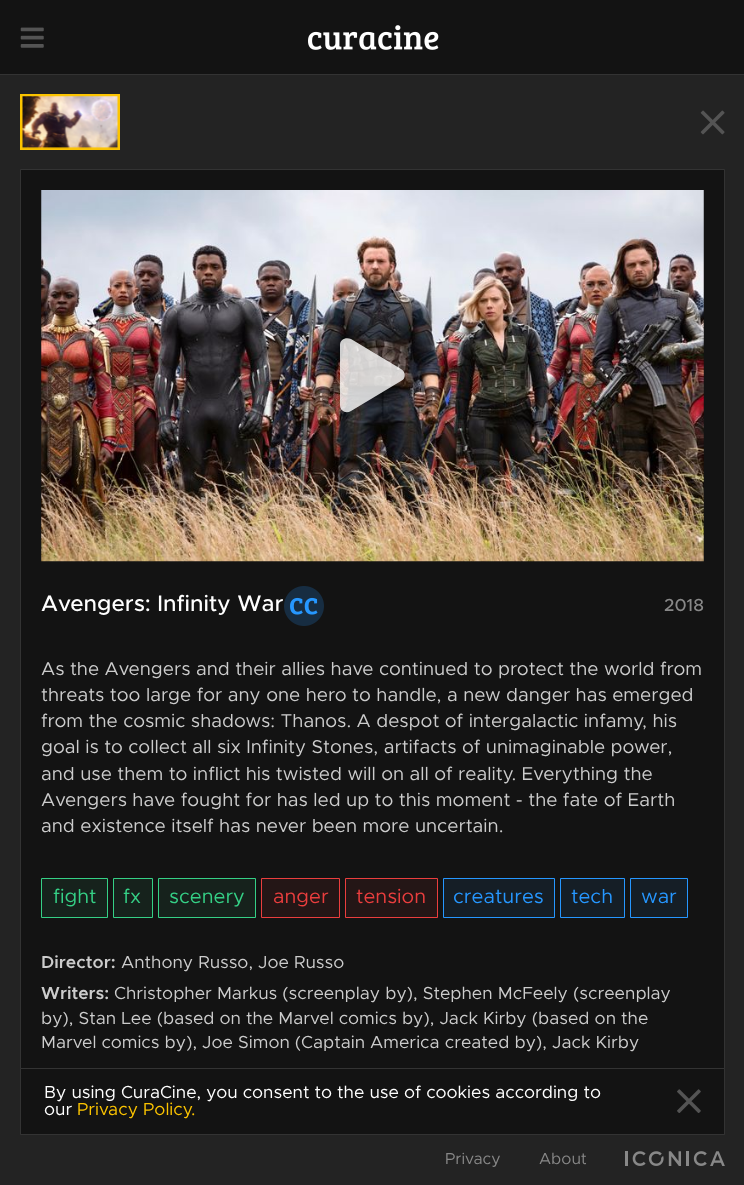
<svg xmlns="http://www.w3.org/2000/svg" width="744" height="1185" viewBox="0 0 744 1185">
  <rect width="100%" height="100%" fill="#232323"/>
  <path d="M0 0h744v74H0z" fill="#131313"/>
  <path d="M0 74h744v1H0z" fill="#333"/>
  <image x="20" y="27" width="24" height="21" href="img/1.png"/>
  <image x="308" y="25" width="131" height="25" href="img/2.png"/>
  <path d="M21.5 95.5h97v53H21.5z" fill="none" stroke="#fcc400" stroke-width="3"/>
  <image x="22" y="96" width="96" height="53" href="img/3.png"/>
  <image x="700" y="110" width="25" height="25" href="img/4.png"/>
  <path d="M21 170h703v898H21z" fill="#131313"/>
  <path d="M20.5 169.5h704v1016H20.5z" fill="none" stroke="#333"/>
  <image x="41" y="190" width="663" height="372" href="img/5.png"/>
  <path d="M401 376L351 346C346 343 340 346 340 351V412C340 417 346 420 351 418L401 388C406 385 406 378 401 376Z" fill="#0000001f"/>
  <path d="M401 369L351 339C346 337 340 339 340 345V405C340 411 346 414 351 411L401 381C406 379 406 372 401 369Z" fill="#ffffffcc"/>
  <image x="284" y="586" width="40" height="40" href="img/6.png"/>
  <path d="M41.5 878.5h66v39H41.5z" fill="#16221c" stroke="#35d086"/>
  <path d="M113.5 878.5h39v39H113.5z" fill="#16221c" stroke="#35d086"/>
  <path d="M158.5 878.5h97v39H158.5z" fill="#16221c" stroke="#35d086"/>
  <path d="M261.5 878.5h78v39H261.5z" fill="#241616" stroke="#ea3e3e"/>
  <path d="M345.5 878.5h92v39H345.5z" fill="#241616" stroke="#ea3e3e"/>
  <path d="M443.5 878.5h111v39H443.5z" fill="#151e26" stroke="#2697ff"/>
  <path d="M560.5 878.5h64v39H560.5z" fill="#151e26" stroke="#2697ff"/>
  <path d="M630.5 878.5h57v39H630.5z" fill="#151e26" stroke="#2697ff"/>
  <path d="M20.5 1068.5h704v66H20.5z" fill="#131313" stroke="#333"/>
  <image x="677" y="1089" width="24" height="24" href="img/7.png"/>
  <path d="M20 1135h705v50H20z" fill="#232323"/>
  <image x="625" y="1151" width="100" height="15" href="img/8.png"/>
  <text x="41" y="611" font-family="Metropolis" font-size="22.5" font-weight="500" fill="#fff">Avengers: Infinity War</text>
  <text x="664" y="611" font-family="Metropolis" font-size="17.5" font-weight="500" fill="#888">2018</text>
  <g font-family="Metropolis" font-size="18.75" fill="#ccc">
    <text x="41" y="675">As the Avengers and their allies have continued to protect the world from</text>
    <text x="41" y="701">threats too large for any one hero to handle, a new danger has emerged</text>
    <text x="41" y="727">from the cosmic shadows: Thanos. A despot of intergalactic infamy, his</text>
    <text x="41" y="753">goal is to collect all six Infinity Stones, artifacts of unimaginable power,</text>
    <text x="41" y="780">and use them to inflict his twisted will on all of reality. Everything the</text>
    <text x="41" y="806">Avengers have fought for has led up to this moment - the fate of Earth</text>
    <text x="41" y="832">and existence itself has never been more uncertain.</text>
  </g>
  <g font-family="Metropolis" font-size="20" fill="#35d086">
    <text x="53" y="903">fight</text>
    <text x="123" y="903">fx</text>
    <text x="169" y="903">scenery</text>
  </g>
  <g font-family="Metropolis" font-size="20" fill="#ea3e3e">
    <text x="273" y="903">anger</text>
    <text x="356" y="903">tension</text>
  </g>
  <g font-family="Metropolis" font-size="20" fill="#2697ff">
    <text x="453" y="903">creatures</text>
    <text x="571" y="903">tech</text>
    <text x="641" y="903">war</text>
  </g>
  <text x="41" y="968" font-family="Metropolis" font-size="17.5" font-weight="600" fill="#ccc">Director:</text>
  <text x="121" y="968" font-family="Metropolis" font-size="17.5" fill="#ccc">Anthony Russo, Joe Russo</text>
  <text x="41" y="999" font-family="Metropolis" font-size="17.5" font-weight="600" fill="#ccc">Writers:</text>
  <g font-family="Metropolis" font-size="17.5" fill="#ccc">
    <text x="114" y="999">Christopher Markus (screenplay by), Stephen McFeely (screenplay</text>
    <text x="41" y="1024">by), Stan Lee (based on the Marvel comics by), Jack Kirby (based on the</text>
    <text x="41" y="1048">Marvel comics by), Joe Simon (Captain America created by), Jack Kirby</text>
  </g>
  <g font-family="Metropolis" font-size="17.5" fill="#fff">
    <text x="44" y="1098">By using CuraCine, you consent to the use of cookies according to</text>
    <text x="44" y="1115">our</text>
  </g>
  <text x="77" y="1115" font-family="Metropolis" font-size="17.5" fill="#fcc400">Privacy Policy.</text>
  <g font-family="Metropolis" font-size="16" fill="#888">
    <text x="445" y="1164">Privacy</text>
    <text x="539" y="1164">About</text>
  </g>
</svg>
